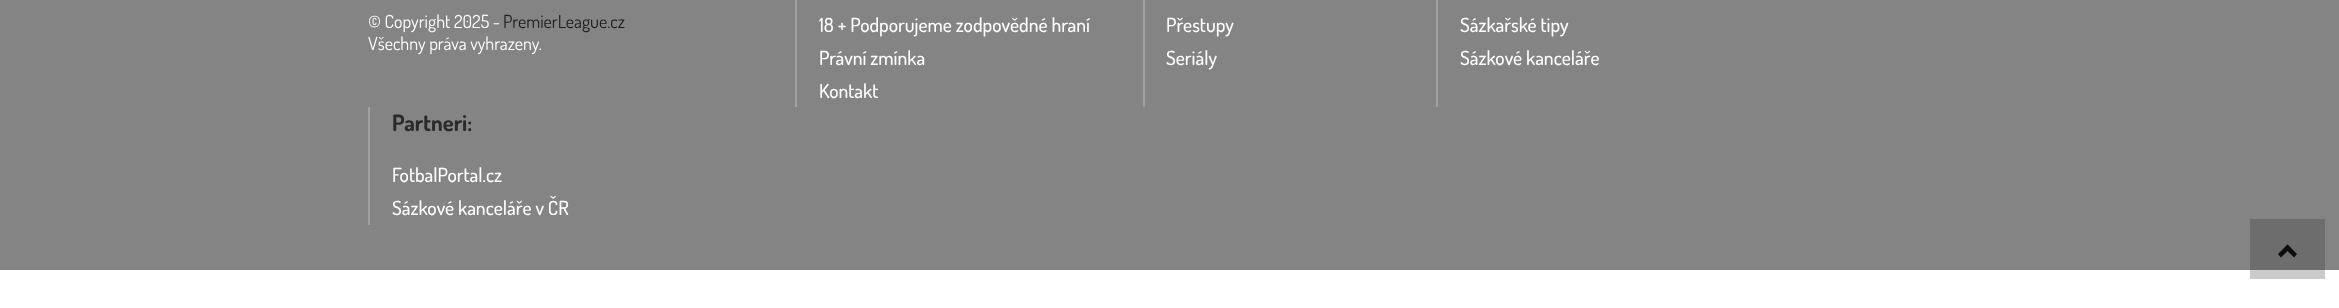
<svg xmlns="http://www.w3.org/2000/svg" width="2339" height="308" viewBox="0 0 2339 308">
  <rect width="100%" height="100%" fill="#fff"/>
  <path d="M2250 270h75v9H2250z" fill="#cbcbcb"/>
  <path d="M0 0h2339v270H0z" fill="#848484"/>
  <path d="M2250 219h75v51H2250z" fill="#6d6d6d"/>
  <path d="M795 0h2v107H795z" fill="#a0a0a0"/>
  <path d="M1143 0h2v107H1143z" fill="#a0a0a0"/>
  <path d="M1436 0h2v107H1436z" fill="#a0a0a0"/>
  <path d="M368 107h2v118H368z" fill="#a0a0a0"/>
  <path d="M2281 257.5L2278 254L2287.5 244.5L2290.5 248Z" fill="#0d0d0d"/>
  <path d="M2294 257.5L2284.5 248L2287.5 244.5L2297 254Z" fill="#0d0d0d"/>
  <text x="368" y="28" font-family="Dosis" font-size="18" fill="#fff">© Copyright 2025 -</text>
  <text x="503" y="28" font-family="Dosis" font-size="18" fill="#1d1d1b">PremierLeague.cz</text>
  <text x="368" y="50" font-family="Dosis" font-size="18" fill="#fff">Všechny práva vyhrazeny.</text>
  <g font-family="Dosis" font-size="19.5" font-weight="500" fill="#fff">
    <text x="819" y="32">18 + Podporujeme zodpovědné hraní</text>
    <text x="819" y="65">Právní zmínka</text>
    <text x="819" y="98">Kontakt</text>
    <text x="1166" y="32">Přestupy</text>
    <text x="1166" y="65">Seriály</text>
    <text x="1460" y="32">Sázkařské tipy</text>
    <text x="1460" y="65">Sázkové kanceláře</text>
  </g>
  <text x="392" y="131" font-family="Dosis" font-size="22.5" font-weight="bold" fill="#2a2a2a">Partneri:</text>
  <g font-family="Dosis" font-size="19.5" font-weight="500" fill="#fff">
    <text x="392" y="182">FotbalPortal.cz</text>
    <text x="392" y="215">Sázkové kanceláře v ČR</text>
  </g>
</svg>
